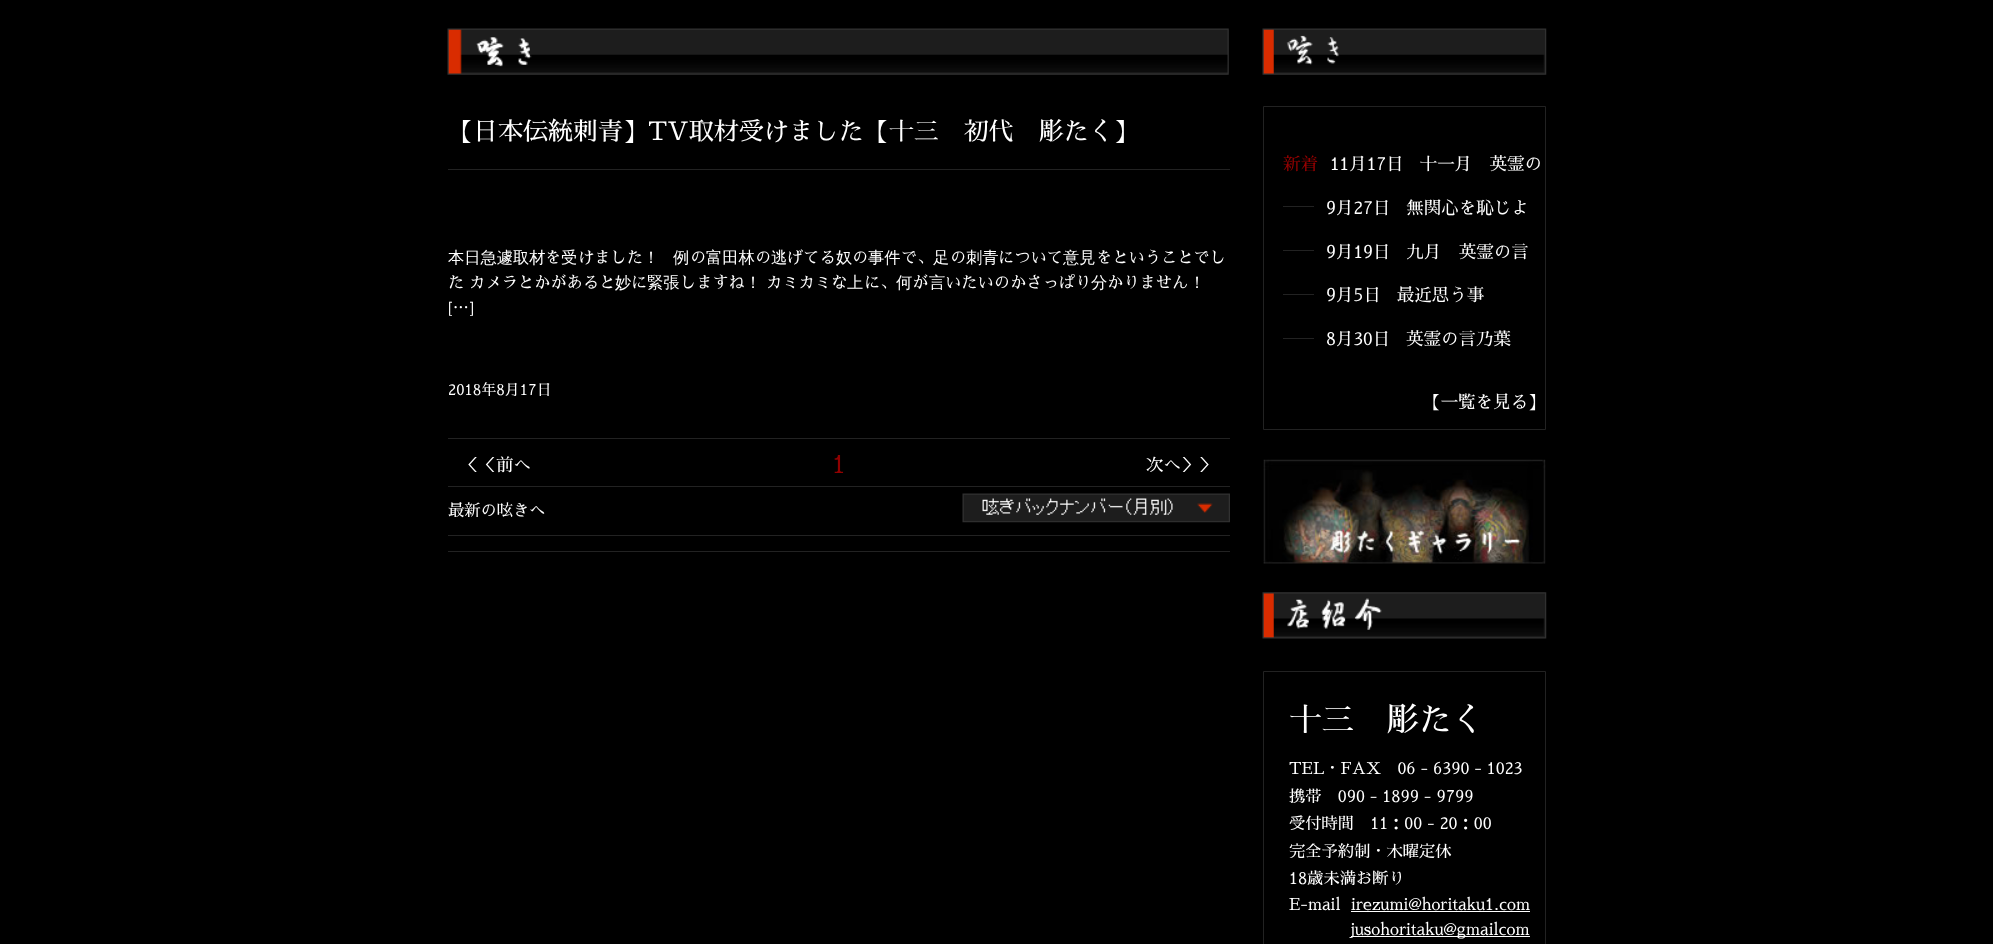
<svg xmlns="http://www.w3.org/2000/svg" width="1993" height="944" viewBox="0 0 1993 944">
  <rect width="100%" height="100%" fill="#000"/>
  <image x="447" y="28" width="782" height="47" href="img/1.png"/>
  <path d="M448 169h782v1H448z" fill="#222"/>
  <path d="M448 438h782v1H448z" fill="#222"/>
  <path d="M448 486h782v1H448z" fill="#222"/>
  <image x="962" y="493" width="268" height="30" href="img/2.png"/>
  <path d="M448 535h782v1H448z" fill="#222"/>
  <path d="M448 551h782v1H448z" fill="#222"/>
  <image x="1262" y="28" width="285" height="47" href="img/3.png"/>
  <path d="M1263.5 106.5h282v323H1263.5z" fill="none" stroke="#222"/>
  <path d="M1283 206h31v1H1283z" fill="#222"/>
  <path d="M1283 250h31v1H1283z" fill="#222"/>
  <path d="M1283 294h31v1H1283z" fill="#222"/>
  <path d="M1283 338h31v1H1283z" fill="#222"/>
  <image x="1263" y="459" width="283" height="105" href="img/4.png"/>
  <image x="1262" y="592" width="285" height="47" href="img/5.png"/>
  <path d="M1263.5 671.5h282v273H1263.5z" fill="none" stroke="#222"/>
  <path d="M1351 911h179v1H1351z" fill="#fff"/>
  <path d="M1351 936h179v1H1351z" fill="#fff"/>
  <text x="448" y="140" font-family="Sawarabi Mincho" font-size="25" fill="#fff">【日本伝統刺青】TV取材受けました【十三　初代　彫たく】</text>
  <text x="448" y="263" font-family="WenQuanYi Zen Hei" font-size="16.25" font-weight="500" fill="#fff">本日急遽取材</text>
  <text x="545" y="263" font-family="Sawarabi Mincho" font-size="16.25" fill="#fff">を</text>
  <text x="561" y="263" font-family="WenQuanYi Zen Hei" font-size="16.25" font-weight="500" fill="#fff">受</text>
  <text x="578" y="263" font-family="Sawarabi Mincho" font-size="16.25" fill="#fff">けました</text>
  <g font-family="WenQuanYi Zen Hei" font-size="16.25" font-weight="500" fill="#fff">
    <text x="643" y="263">！</text>
    <text x="673" y="263">例</text>
  </g>
  <text x="690" y="263" font-family="Sawarabi Mincho" font-size="16.25" fill="#fff">の</text>
  <text x="706" y="263" font-family="WenQuanYi Zen Hei" font-size="16.25" font-weight="500" fill="#fff">富田林</text>
  <text x="755" y="263" font-family="Sawarabi Mincho" font-size="16.25" fill="#fff">の</text>
  <text x="771" y="263" font-family="WenQuanYi Zen Hei" font-size="16.25" font-weight="500" fill="#fff">逃</text>
  <text x="787" y="263" font-family="Sawarabi Mincho" font-size="16.25" fill="#fff">げてる</text>
  <text x="836" y="263" font-family="WenQuanYi Zen Hei" font-size="16.25" font-weight="500" fill="#fff">奴</text>
  <text x="852" y="263" font-family="Sawarabi Mincho" font-size="16.25" fill="#fff">の</text>
  <text x="868" y="263" font-family="WenQuanYi Zen Hei" font-size="16.25" font-weight="500" fill="#fff">事件</text>
  <text x="901" y="263" font-family="Sawarabi Mincho" font-size="16.25" fill="#fff">で、</text>
  <text x="933" y="263" font-family="WenQuanYi Zen Hei" font-size="16.25" font-weight="500" fill="#fff">足</text>
  <text x="950" y="263" font-family="Sawarabi Mincho" font-size="16.25" fill="#fff">の</text>
  <text x="966" y="263" font-family="WenQuanYi Zen Hei" font-size="16.25" font-weight="500" fill="#fff">刺青</text>
  <text x="998" y="263" font-family="Sawarabi Mincho" font-size="16.25" fill="#fff">について</text>
  <text x="1063" y="263" font-family="WenQuanYi Zen Hei" font-size="16.25" font-weight="500" fill="#fff">意見</text>
  <g font-family="Sawarabi Mincho" font-size="16.25" fill="#fff">
    <text x="1096" y="263">をということでし</text>
    <text x="448" y="288">た カメラとかがあると</text>
  </g>
  <text x="615" y="288" font-family="WenQuanYi Zen Hei" font-size="16.25" font-weight="500" fill="#fff">妙</text>
  <text x="631" y="288" font-family="Sawarabi Mincho" font-size="16.25" fill="#fff">に</text>
  <text x="647" y="288" font-family="WenQuanYi Zen Hei" font-size="16.25" font-weight="500" fill="#fff">緊張</text>
  <text x="680" y="288" font-family="Sawarabi Mincho" font-size="16.25" fill="#fff">しますね</text>
  <text x="745" y="288" font-family="WenQuanYi Zen Hei" font-size="16.25" font-weight="500" fill="#fff">！</text>
  <text x="766" y="288" font-family="Sawarabi Mincho" font-size="16.25" fill="#fff">カミカミな</text>
  <text x="847" y="288" font-family="WenQuanYi Zen Hei" font-size="16.25" font-weight="500" fill="#fff">上</text>
  <text x="864" y="288" font-family="Sawarabi Mincho" font-size="16.25" fill="#fff">に、</text>
  <text x="896" y="288" font-family="WenQuanYi Zen Hei" font-size="16.25" font-weight="500" fill="#fff">何</text>
  <text x="912" y="288" font-family="Sawarabi Mincho" font-size="16.25" fill="#fff">が</text>
  <text x="929" y="288" font-family="WenQuanYi Zen Hei" font-size="16.25" font-weight="500" fill="#fff">言</text>
  <text x="945" y="288" font-family="Sawarabi Mincho" font-size="16.25" fill="#fff">いたいのかさっぱり</text>
  <text x="1091" y="288" font-family="WenQuanYi Zen Hei" font-size="16.25" font-weight="500" fill="#fff">分</text>
  <text x="1107" y="288" font-family="Sawarabi Mincho" font-size="16.25" fill="#fff">かりません</text>
  <g font-family="WenQuanYi Zen Hei" font-size="16.25" font-weight="500" fill="#fff">
    <text x="1189" y="288">！</text>
    <text x="448" y="313">[…]</text>
  </g>
  <text x="448" y="395" font-family="Sawarabi Mincho" font-size="15" fill="#fff">2018年8月17日</text>
  <text x="461" y="471" font-family="Sawarabi Mincho" font-size="17.5" fill="#fff">＜＜前へ</text>
  <text x="832" y="473" font-family="Sawarabi Mincho" font-size="25" fill="#900000">1</text>
  <text x="1146" y="471" font-family="Sawarabi Mincho" font-size="17.5" fill="#fff">次へ＞＞</text>
  <text x="448" y="516" font-family="Sawarabi Mincho" font-size="16.25" fill="#fff">最新の呟きへ</text>
  <text x="1283" y="170" font-family="Sawarabi Mincho" font-size="17.5" fill="#900">新着</text>
  <g font-family="Sawarabi Mincho" font-size="17.5" fill="#fff">
    <text x="1330" y="170" xml:space="preserve">11月17日   十一月　英霊の</text>
    <text x="1326" y="214" xml:space="preserve">9月27日   無関心を恥じよ</text>
    <text x="1326" y="258" xml:space="preserve">9月19日   九月　英霊の言</text>
    <text x="1326" y="301" xml:space="preserve">9月5日   最近思う事</text>
    <text x="1326" y="345" xml:space="preserve">8月30日   英霊の言乃葉</text>
    <text x="1423" y="408">【一覧を見る】</text>
  </g>
  <text x="1289" y="731" font-family="Sawarabi Mincho" font-size="32.5" fill="#fff">十三　彫たく</text>
  <g font-family="Sawarabi Mincho" font-size="16.25" fill="#fff">
    <text x="1289" y="774">TEL・FAX　06 - 6390 - 1023</text>
    <text x="1289" y="802">携帯　090 - 1899 - 9799</text>
    <text x="1289" y="829">受付時間　11：00 - 20：00</text>
    <text x="1289" y="857">完全予約制・木曜定休</text>
    <text x="1289" y="884">18歳未満お断り</text>
    <text x="1289" y="910">E-mail</text>
    <text x="1351" y="910">irezumi@horitaku1.com</text>
    <text x="1351" y="935">jusohoritaku@gmailcom</text>
  </g>
</svg>
